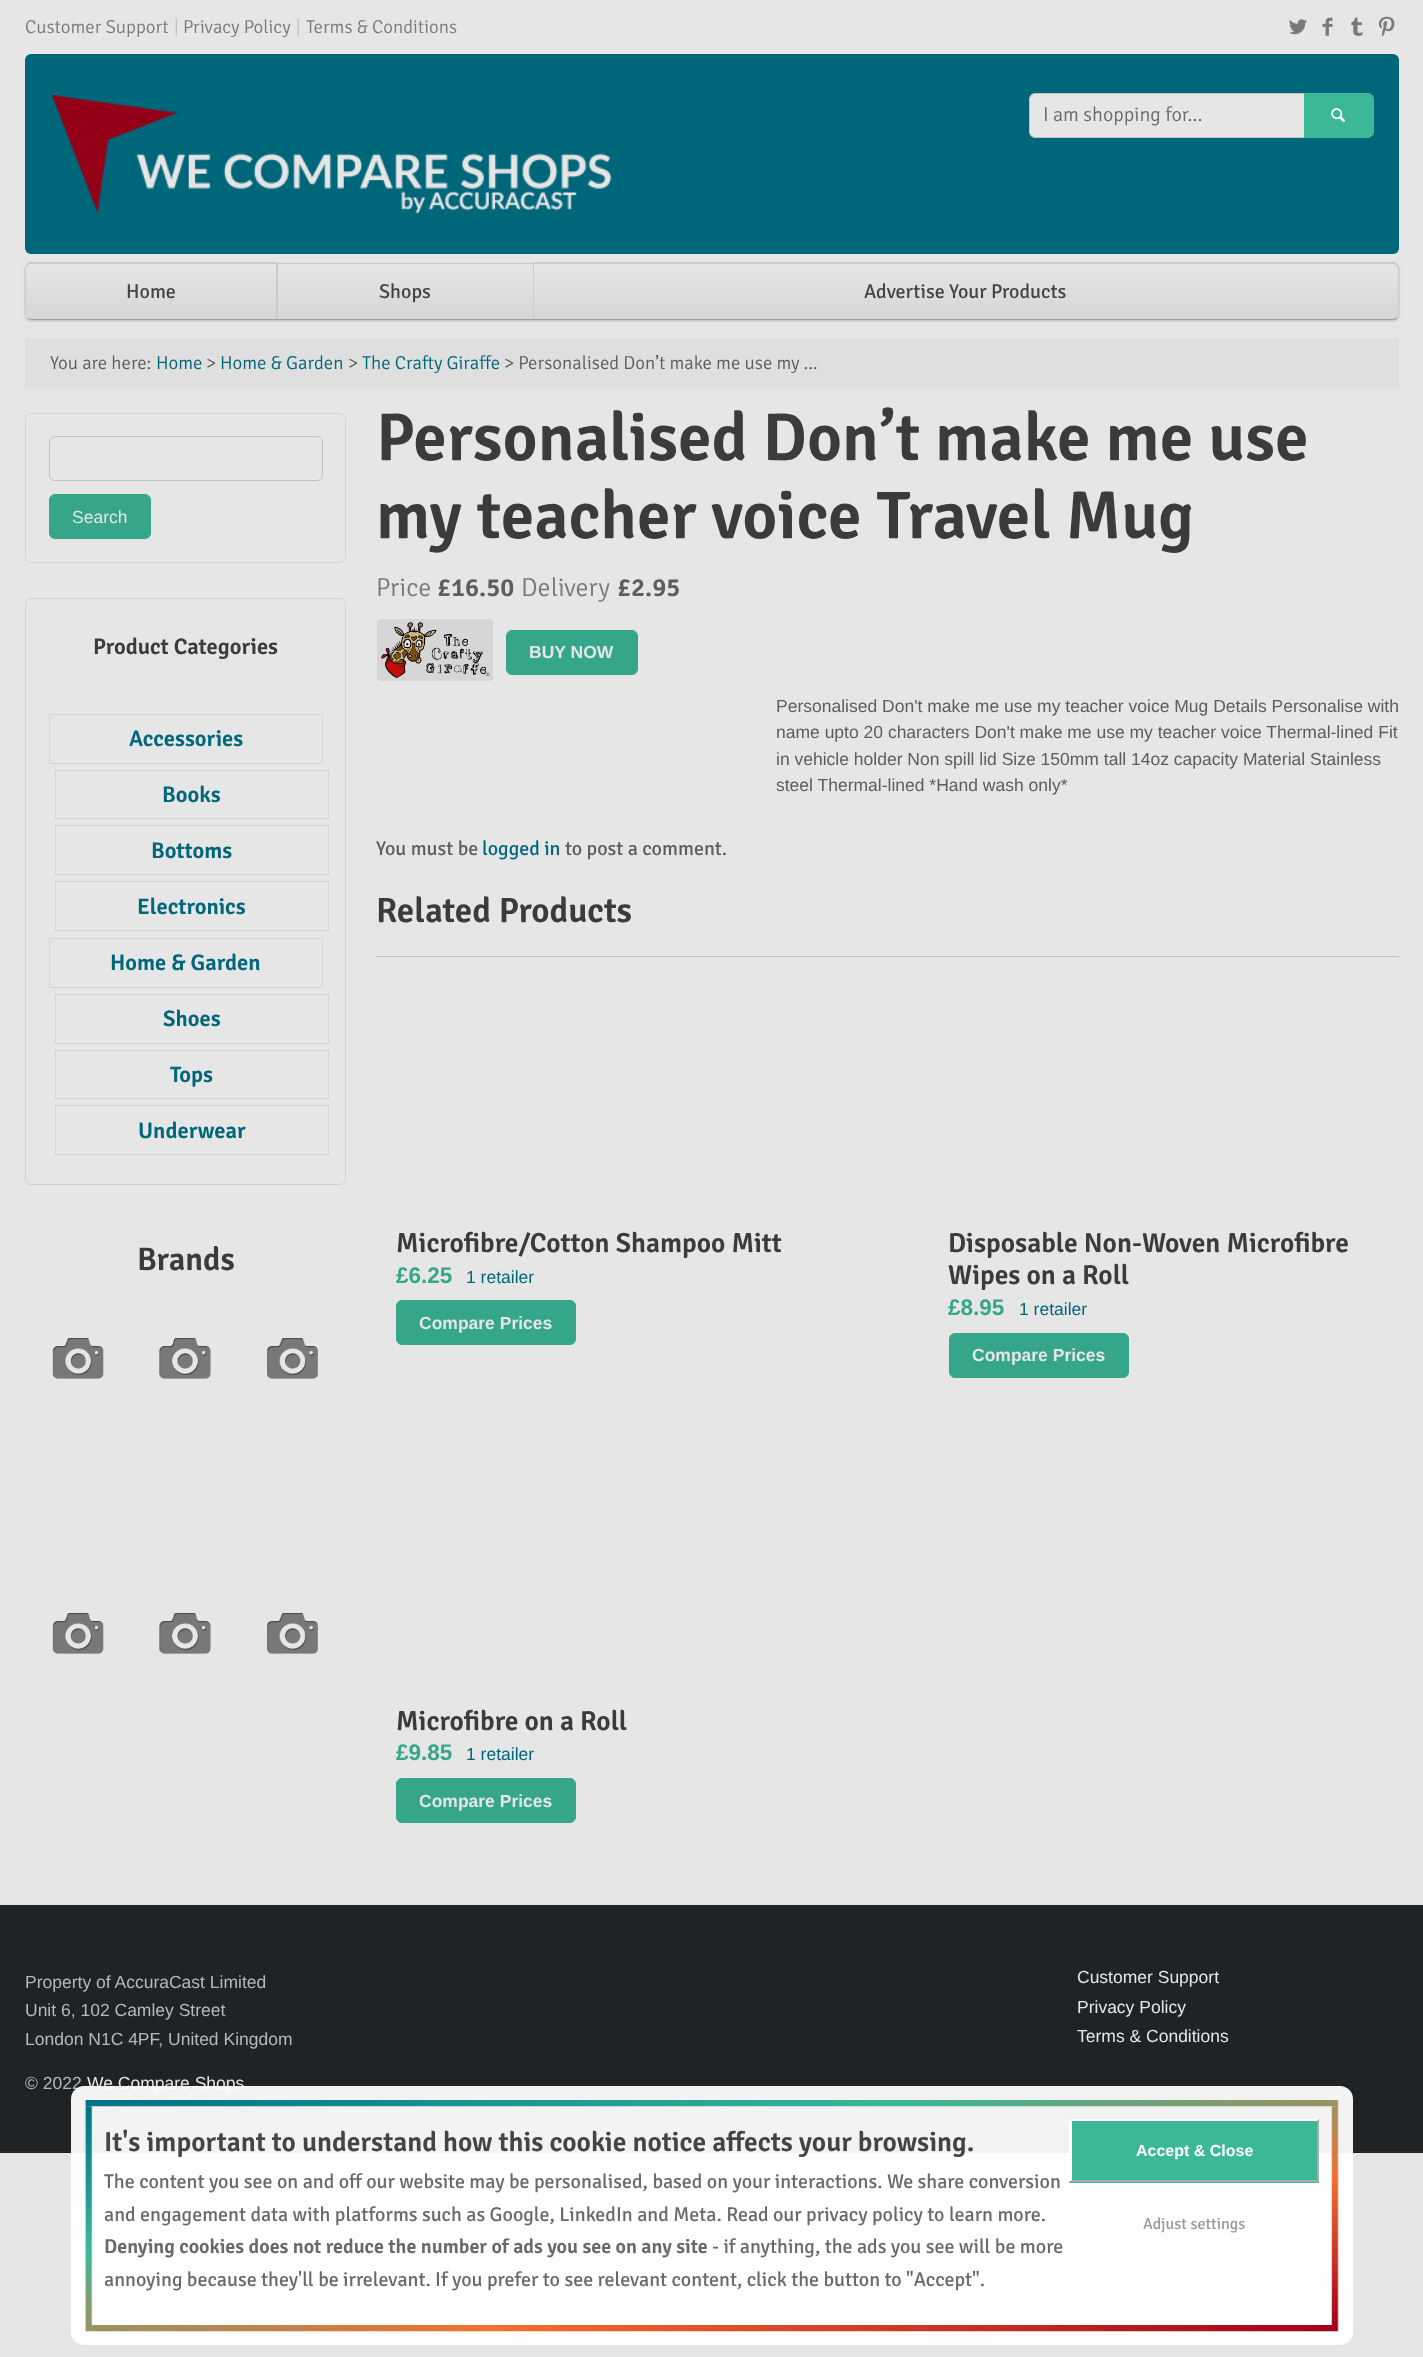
<svg xmlns="http://www.w3.org/2000/svg" width="1423" height="2357" viewBox="0 0 1423 2357">
  <defs>
    <clipPath id="clip1"><path d="M31 263H278V320H31C27.5 320 25 317.5 25 314V269C25 265.5 27.5 263 31 263Z"/></clipPath>
    <linearGradient id="g1" gradientUnits="userSpaceOnUse" x1="151" y1="264" x2="151" y2="319"><stop offset="0" stop-color="#e6e6e6"/><stop offset="1" stop-color="#d6d6d6"/></linearGradient>
    <linearGradient id="g2" gradientUnits="userSpaceOnUse" x1="151" y1="319" x2="151" y2="374"><stop offset="0" stop-color="#e6e6e6"/><stop offset="1" stop-color="#d6d6d6"/></linearGradient>
    <linearGradient id="g3" gradientUnits="userSpaceOnUse" x1="405" y1="264" x2="405" y2="319"><stop offset="0" stop-color="#e6e6e6"/><stop offset="1" stop-color="#d6d6d6"/></linearGradient>
    <linearGradient id="g4" gradientUnits="userSpaceOnUse" x1="966" y1="264" x2="966" y2="319"><stop offset="0" stop-color="#e6e6e6"/><stop offset="1" stop-color="#d6d6d6"/></linearGradient>
  </defs>
  <rect width="100%" height="100%" fill="#e6e6e6"/>
  <image x="1289" y="19" width="18" height="16" href="img/1.png"/>
  <image x="1322" y="17" width="11" height="19" href="img/2.png"/>
  <image x="1351" y="17" width="12" height="19" href="img/3.png"/>
  <image x="1378" y="16" width="17" height="21" href="img/4.png"/>
  <rect x="25" y="54" width="1374" height="200" rx="6" fill="#00667a"/>
  <image x="51" y="94" width="561" height="120" href="img/5.png"/>
  <path d="M1035 93.5H1304.5V137.5H1035C1032 137.5 1029.5 135 1029.5 132V99C1029.5 96 1032 93.5 1035 93.5Z" fill="#e6e6e6" stroke="#c2c2c2"/>
  <path d="M1304.5 93.5H1368C1371 93.5 1373.5 96 1373.5 99V132C1373.5 135 1371 137.5 1368 137.5H1304.5Z" fill="#3cb899" stroke="#3cb899"/>
  <image x="1331" y="108" width="14" height="14" href="img/6.png"/>
  <rect x="25" y="264" width="1374" height="57" rx="6" fill="#b8b8b8" filter="blur(1px)"/>
  <g clip-path="url(#clip1)">
    <path d="M25 264h252v55H25z" fill="url(#g1)"/>
    <path d="M25 319h253v1H25z" fill="url(#g2)"/>
  </g>
  <path d="M31 264L28 265L27 264L29 262H278L276 264Z" fill="#cbcbcb"/>
  <path d="M278 262L276 264V318L278 320Z" fill="#cbcbcb"/>
  <path d="M278 320L276 318V319H31C30 319 28 318 27 318C28 319 30 320 31 320Z" fill="#9f9f9f"/>
  <path d="M25 269V314C25 316 26 317 27 318C26 317 26 316 26 314V269C26 267 27 266 28 265L27 264C26 265 25 267 25 269Z" fill="#cbcbcb"/>
  <path d="M278 264h255v55H278z" fill="url(#g3)"/>
  <path d="M278 263h256v1H278z" fill="#cbcbcb"/>
  <path d="M533 263h1v57H533z" fill="#cbcbcb"/>
  <path d="M278 319h256v1H278z" fill="#9f9f9f"/>
  <path d="M534 264H1393C1396 264 1398 266 1398 269V314C1398 317 1396 319 1393 319H534Z" fill="url(#g4)"/>
  <path d="M534 264V262H1395L1397 264L1396 265L1392 264Z" fill="#cbcbcb"/>
  <path d="M1396 318C1397 317 1398 315 1398 314V269C1398 267 1397 266 1396 265L1397 264L1399 267V316L1397 318Z" fill="#cbcbcb"/>
  <path d="M534 320H1392C1394 320 1396 319 1397 318H1396L1393 319H534Z" fill="#9f9f9f"/>
  <path d="M25 338h1374v50H25z" fill="#dfdfdf"/>
  <rect x="25.5" y="413.5" width="320" height="149" rx="5.5" fill="none" stroke="#d2d2d2"/>
  <rect x="49.5" y="436.5" width="273" height="44" rx="5.5" fill="none" stroke="#c2c2c2"/>
  <rect x="49.5" y="494.5" width="101" height="44" rx="5.5" fill="#36a68a" stroke="#36a68a"/>
  <rect x="25.5" y="598.5" width="320" height="586" rx="5.5" fill="none" stroke="#d2d2d2"/>
  <path d="M49.5 714.5h273v49H49.5z" fill="none" stroke="#d4d4d4"/>
  <path d="M55.5 770.5h273v48H55.5z" fill="none" stroke="#d4d4d4"/>
  <path d="M55.5 825.5h273v49H55.5z" fill="none" stroke="#d4d4d4"/>
  <path d="M55.5 881.5h273v49H55.5z" fill="none" stroke="#d4d4d4"/>
  <path d="M49.5 938.5h273v49H49.5z" fill="none" stroke="#d4d4d4"/>
  <path d="M55.5 994.5h273v49H55.5z" fill="none" stroke="#d4d4d4"/>
  <path d="M55.5 1050.5h273v48H55.5z" fill="none" stroke="#d4d4d4"/>
  <path d="M55.5 1105.5h273v49H55.5z" fill="none" stroke="#d4d4d4"/>
  <image x="52" y="1338" width="52" height="41" href="img/7.png"/>
  <image x="159" y="1338" width="52" height="41" href="img/8.png"/>
  <image x="267" y="1338" width="51" height="41" href="img/9.png"/>
  <image x="52" y="1613" width="52" height="41" href="img/7.png"/>
  <image x="159" y="1613" width="52" height="41" href="img/8.png"/>
  <image x="267" y="1613" width="51" height="41" href="img/9.png"/>
  <image x="377" y="619" width="116" height="62" href="img/10.png"/>
  <rect x="506.5" y="630.5" width="131" height="44" rx="5.5" fill="#36a68a" stroke="#36a68a"/>
  <path d="M376 956h1023v1H376z" fill="#c3c3c3"/>
  <rect x="396.5" y="1300.5" width="179" height="44" rx="5.5" fill="#36a68a" stroke="#36a68a"/>
  <rect x="949.5" y="1333.5" width="179" height="44" rx="5.5" fill="#36a68a" stroke="#36a68a"/>
  <rect x="396.5" y="1778.5" width="179" height="44" rx="5.5" fill="#36a68a" stroke="#36a68a"/>
  <path d="M0 1905h1423v248H0z" fill="#202326"/>
  <path d="M0 2151h1423v1H0z" fill="#2a2f32"/>
  <text x="25" y="33" font-family="Signika" font-size="18.75" font-weight="300" fill="#7a7a7a">Customer Support</text>
  <text x="174" y="33" font-family="Signika" font-size="18.75" font-weight="300" fill="#c2c2c2">|</text>
  <text x="183" y="33" font-family="Signika" font-size="18.75" font-weight="300" fill="#7a7a7a">Privacy Policy</text>
  <text x="296" y="33" font-family="Signika" font-size="18.75" font-weight="300" fill="#c2c2c2">|</text>
  <text x="306" y="33" font-family="Signika" font-size="18.75" font-weight="300" fill="#7a7a7a">Terms &amp; Conditions</text>
  <text x="1043" y="121" font-family="Signika" font-size="20" font-weight="300" fill="#696969">I am shopping for...</text>
  <g font-family="Signika" font-size="20" fill="#444">
    <text x="126" y="298">Home</text>
    <text x="379" y="298">Shops</text>
    <text x="864" y="298">Advertise Your Products</text>
  </g>
  <text x="50" y="369" font-family="Signika" font-size="18.75" font-weight="300" fill="#5d5d5d">You are here:</text>
  <text x="156" y="369" font-family="Signika" font-size="18.75" font-weight="300" fill="#00667a">Home</text>
  <text x="206" y="369" font-family="Signika" font-size="18.75" font-weight="300" fill="#5d5d5d">&gt;</text>
  <text x="220" y="369" font-family="Signika" font-size="18.75" font-weight="300" fill="#00667a">Home &amp; Garden</text>
  <text x="348" y="369" font-family="Signika" font-size="18.75" font-weight="300" fill="#5d5d5d">&gt;</text>
  <text x="362" y="369" font-family="Signika" font-size="18.75" font-weight="300" fill="#00667a">The Crafty Giraffe</text>
  <text x="504" y="369" font-family="Signika" font-size="18.75" font-weight="300" fill="#5d5d5d">&gt; Personalised Don’t make me use my ...</text>
  <text x="72" y="523" font-family="Liberation Sans" font-size="17.5" fill="#e6e6e6">Search</text>
  <text x="93" y="654" font-family="Signika" font-size="22.5" font-weight="600" fill="#3b3b3b">Product Categories</text>
  <g font-family="Signika" font-size="22.5" font-weight="600" fill="#00667a">
    <text x="129" y="746">Accessories</text>
    <text x="162" y="802">Books</text>
    <text x="151" y="858">Bottoms</text>
    <text x="137" y="914">Electronics</text>
    <text x="110" y="970">Home &amp; Garden</text>
    <text x="163" y="1026">Shoes</text>
    <text x="170" y="1082">Tops</text>
    <text x="138" y="1138">Underwear</text>
  </g>
  <text x="137" y="1270" font-family="Signika" font-size="32.5" font-weight="600" fill="#3b3b3b">Brands</text>
  <g font-family="Signika" font-size="67.5" font-weight="600" fill="#3b3b3b">
    <text x="376" y="460">Personalised Don’t make me use</text>
    <text x="376" y="538">my teacher voice Travel Mug</text>
  </g>
  <text x="376" y="596" font-family="Signika" font-size="26" font-weight="300" fill="#7a7a7a">Price</text>
  <text x="437" y="596" font-family="Signika" font-size="26" font-weight="600" fill="#5d5d5d">£16.50</text>
  <text x="521" y="596" font-family="Signika" font-size="26" font-weight="300" fill="#7a7a7a">Delivery</text>
  <text x="617" y="596" font-family="Signika" font-size="26" font-weight="600" fill="#5d5d5d">£2.95</text>
  <text x="529" y="658" font-family="Liberation Sans" font-size="17.5" font-weight="bold" fill="#e6e6e6">BUY NOW</text>
  <g font-family="Liberation Sans" font-size="17.5" fill="#5d5d5d">
    <text x="776" y="712">Personalised Don't make me use my teacher voice Mug Details Personalise with</text>
    <text x="776" y="738">name upto 20 characters Don't make me use my teacher voice Thermal-lined Fit</text>
    <text x="776" y="765">in vehicle holder Non spill lid Size 150mm tall 14oz capacity Material Stainless</text>
    <text x="776" y="791">steel Thermal-lined *Hand wash only*</text>
  </g>
  <text x="376" y="855" font-family="Signika" font-size="20" fill="#5d5d5d">You must be</text>
  <text x="482" y="855" font-family="Signika" font-size="20" fill="#00667a">logged in</text>
  <text x="565" y="855" font-family="Signika" font-size="20" fill="#5d5d5d">to post a comment.</text>
  <text x="376" y="922" font-family="Signika" font-size="35" font-weight="600" fill="#3b3b3b">Related Products</text>
  <text x="396" y="1252" font-family="Signika" font-size="27.5" font-weight="600" fill="#3b3b3b">Microfibre/Cotton Shampoo Mitt</text>
  <text x="396" y="1283" font-family="Liberation Sans" font-size="22.5" font-weight="bold" fill="#36a68a">£6.25</text>
  <text x="466" y="1283" font-family="Liberation Sans" font-size="17.5" fill="#00667a">1 retailer</text>
  <text x="419" y="1329" font-family="Liberation Sans" font-size="17.5" font-weight="bold" fill="#e6e6e6">Compare Prices</text>
  <g font-family="Signika" font-size="27.5" font-weight="600" fill="#3b3b3b">
    <text x="948" y="1252">Disposable Non-Woven Microfibre</text>
    <text x="948" y="1284">Wipes on a Roll</text>
  </g>
  <text x="948" y="1315" font-family="Liberation Sans" font-size="22.5" font-weight="bold" fill="#36a68a">£8.95</text>
  <text x="1019" y="1315" font-family="Liberation Sans" font-size="17.5" fill="#00667a">1 retailer</text>
  <text x="972" y="1361" font-family="Liberation Sans" font-size="17.5" font-weight="bold" fill="#e6e6e6">Compare Prices</text>
  <text x="396" y="1730" font-family="Signika" font-size="27.5" font-weight="600" fill="#3b3b3b">Microfibre on a Roll</text>
  <text x="396" y="1760" font-family="Liberation Sans" font-size="22.5" font-weight="bold" fill="#36a68a">£9.85</text>
  <text x="466" y="1760" font-family="Liberation Sans" font-size="17.5" fill="#00667a">1 retailer</text>
  <text x="419" y="1807" font-family="Liberation Sans" font-size="17.5" font-weight="bold" fill="#e6e6e6">Compare Prices</text>
  <g font-family="Liberation Sans" font-size="17.5" fill="#b4b9bd">
    <text x="25" y="1988">Property of AccuraCast Limited</text>
    <text x="25" y="2016">Unit 6, 102 Camley Street</text>
    <text x="25" y="2045">London N1C 4PF, United Kingdom</text>
    <text x="25" y="2089">© 2022</text>
  </g>
  <g font-family="Liberation Sans" font-size="17.5" fill="#e6e6e6">
    <text x="87" y="2089">We Compare Shops</text>
    <text x="1077" y="1983">Customer Support</text>
    <text x="1077" y="2013">Privacy Policy</text>
    <text x="1077" y="2042">Terms &amp; Conditions</text>
  </g>
  <rect x="71" y="2086" width="1282" height="259" rx="13" fill="#fffffff2"/>
  <image x="84" y="2100" width="1255" height="232" href="img/11.png"/>
  <text x="104" y="2151" font-family="Signika" font-size="27.5" font-weight="600" fill="#444">It's important to understand how this cookie notice affects your browsing.</text>
  <g font-family="Signika" font-size="20" fill="#696969">
    <text x="104" y="2188">The content you see on and off our website may be personalised, based on your interactions. We share conversion</text>
    <text x="104" y="2221">and engagement data with platforms such as Google, LinkedIn and Meta. Read our privacy policy to learn more.</text>
  </g>
  <text x="104" y="2253" font-family="Signika" font-size="20" font-weight="600" fill="#696969">Denying cookies does not reduce the number of ads you see on any site</text>
  <g font-family="Signika" font-size="20" fill="#696969">
    <text x="712" y="2253">- if anything, the ads you see will be more</text>
    <text x="104" y="2286">annoying because they'll be irrelevant. If you prefer to see relevant content, click the button to "Accept".</text>
  </g>
  <path d="M1069 2119h250v64H1069z" fill="#3cb899"/>
  <path d="M1069 2119H1319L1317 2121H1072Z" fill="#fff"/>
  <path d="M1319 2119V2182L1317 2180V2121Z" fill="#aaa"/>
  <path d="M1319 2182H1069L1072 2180H1317Z" fill="#aaa"/>
  <path d="M1069 2182V2119L1072 2121V2180Z" fill="#fff"/>
  <text x="1136" y="2156" font-family="Liberation Sans" font-size="16" font-weight="bold" fill="#fff">Accept &amp; Close</text>
  <text x="1143" y="2229" font-family="Signika" font-size="16" fill="#999">Adjust settings</text>
</svg>
